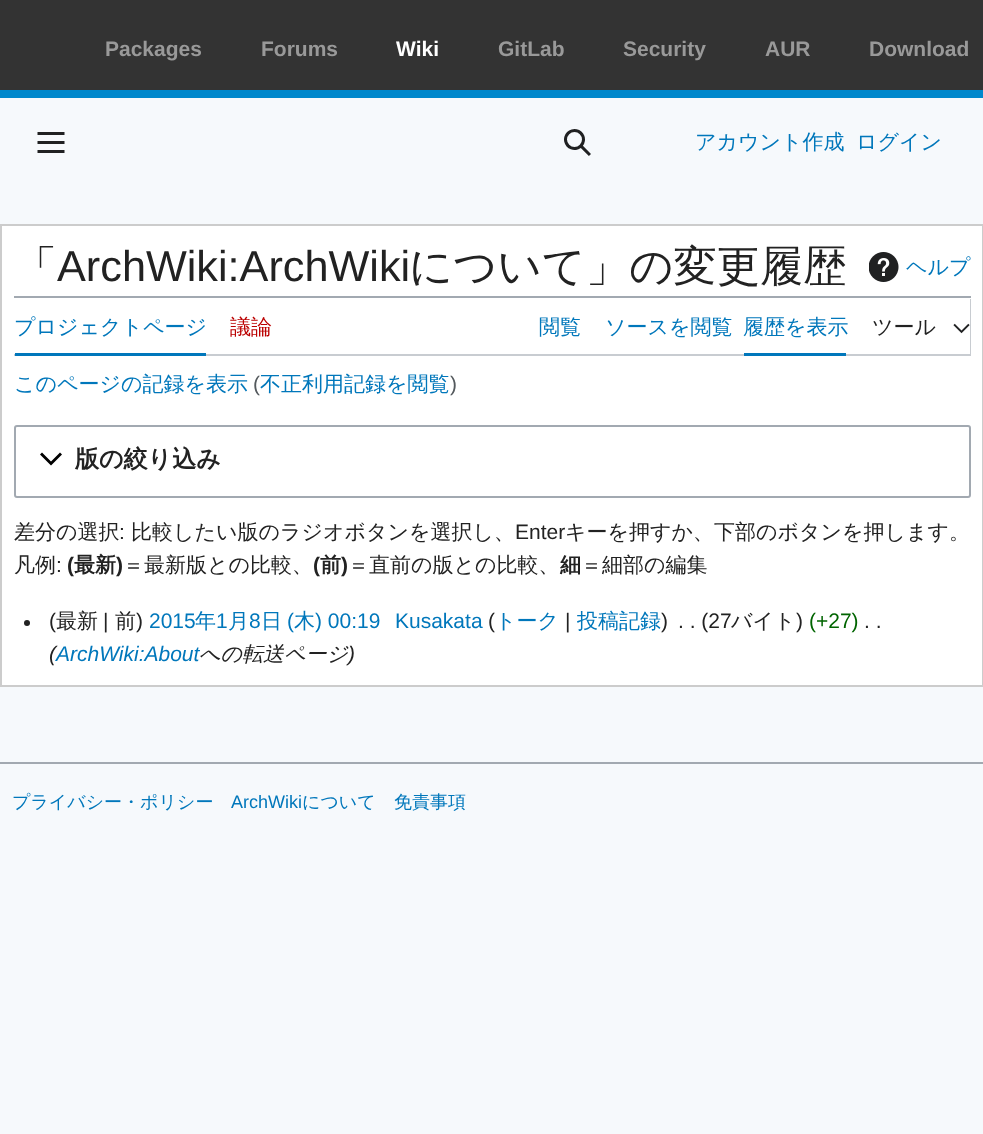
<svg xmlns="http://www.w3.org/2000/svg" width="983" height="1134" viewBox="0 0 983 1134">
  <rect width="100%" height="100%" fill="#f6f9fc"/>
  <path d="M0 0h983v90H0z" fill="#333"/>
  <path d="M0 90h983v8H0z" fill="#08c"/>
  <image x="37" y="132" width="28" height="21" href="img/1.png"/>
  <image x="564" y="129" width="27" height="27" href="img/2.png"/>
  <path d="M1 225h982v461H1z" fill="#fff" stroke="#ccc" stroke-width="2"/>
  <image x="869" y="252" width="30" height="30" href="img/3.png"/>
  <path d="M14 296h957v2H14z" fill="#a2a9b1"/>
  <path d="M14 354V356H971V299H970V354Z" fill="#c8ccd1"/>
  <path d="M15 353h191v3H15z" fill="#07b"/>
  <path d="M744 353h102v3H744z" fill="#07b"/>
  <image x="953" y="323" width="17" height="11" href="img/4.png"/>
  <rect x="15" y="426" width="955" height="71" rx="2" fill="none" stroke="#a2a9b1" stroke-width="2"/>
  <path d="M60 452.5L51 461.5L42 452.5L40 454.5L51 465.5L62 454.5Z" fill="#000"/>
  <circle cx="27" cy="623" r="3" fill="#222"/>
  <path d="M0 762h983v2H0z" fill="#a2a9b1"/>
  <g font-family="Liberation Sans" font-size="21" font-weight="bold" fill="#999">
    <text x="105" y="56">Packages</text>
    <text x="261" y="56">Forums</text>
  </g>
  <text x="396" y="56" font-family="Liberation Sans" font-size="21" font-weight="bold" fill="#fff">Wiki</text>
  <g font-family="Liberation Sans" font-size="21" font-weight="bold" fill="#999">
    <text x="498" y="56">GitLab</text>
    <text x="623" y="56">Security</text>
    <text x="765" y="56">AUR</text>
    <text x="869" y="56">Download</text>
  </g>
  <g font-family="WenQuanYi Zen Hei" font-size="21" font-weight="500" fill="#07b">
    <text x="695" y="149">アカウント作成</text>
    <text x="856" y="149">ログイン</text>
  </g>
  <text x="14" y="281" font-family="WenQuanYi Zen Hei" font-size="43.25" font-weight="500" fill="#222">「</text>
  <text x="57" y="281" font-family="Liberation Sans" font-size="43.25" fill="#222">ArchWiki:ArchWiki</text>
  <text x="409" y="281" font-family="WenQuanYi Zen Hei" font-size="43.25" font-weight="500" fill="#222">について」の変更履歴</text>
  <g font-family="WenQuanYi Zen Hei" font-size="21" font-weight="500" fill="#07b">
    <text x="906" y="274">ヘルプ</text>
    <text x="14" y="334">プロジェクトページ</text>
  </g>
  <text x="230" y="334" font-family="WenQuanYi Zen Hei" font-size="21" font-weight="500" fill="#b00">議論</text>
  <g font-family="WenQuanYi Zen Hei" font-size="21" font-weight="500" fill="#07b">
    <text x="539" y="334">閲覧</text>
    <text x="605" y="334">ソースを閲覧</text>
    <text x="743" y="334">履歴を表示</text>
  </g>
  <text x="872" y="334" font-family="WenQuanYi Zen Hei" font-size="21" font-weight="500" fill="#222">ツール</text>
  <text x="14" y="391" font-family="WenQuanYi Zen Hei" font-size="21" font-weight="500" fill="#07b">このページの記録を表示</text>
  <text x="253" y="391" font-family="Liberation Sans" font-size="21" fill="#54595d">(</text>
  <text x="260" y="391" font-family="WenQuanYi Zen Hei" font-size="21" font-weight="500" fill="#07b">不正利用記録を閲覧</text>
  <text x="450" y="391" font-family="Liberation Sans" font-size="21" fill="#54595d">)</text>
  <text x="75" y="467" font-family="WenQuanYi Zen Hei" font-size="24" font-weight="bold" fill="#222">版の絞り込み</text>
  <text x="14" y="539" font-family="WenQuanYi Zen Hei" font-size="21" font-weight="500" fill="#222">差分の選択</text>
  <text x="119" y="539" font-family="Liberation Sans" font-size="21" fill="#222">:</text>
  <text x="131" y="539" font-family="WenQuanYi Zen Hei" font-size="21" font-weight="500" fill="#222">比較したい版のラジオボタンを選択し、</text>
  <text x="515" y="539" font-family="Liberation Sans" font-size="21" fill="#222">Enter</text>
  <g font-family="WenQuanYi Zen Hei" font-size="21" font-weight="500" fill="#222">
    <text x="565" y="539">キーを押すか、下部のボタンを押します。</text>
    <text x="14" y="572">凡例</text>
  </g>
  <text x="56" y="572" font-family="Liberation Sans" font-size="21" fill="#222">:</text>
  <text x="67" y="572" font-family="Liberation Sans" font-size="21" font-weight="bold" fill="#222">(</text>
  <text x="74" y="572" font-family="WenQuanYi Zen Hei" font-size="21" font-weight="bold" fill="#222">最新</text>
  <text x="116" y="572" font-family="Liberation Sans" font-size="21" font-weight="bold" fill="#222">)</text>
  <text x="123" y="572" font-family="WenQuanYi Zen Hei" font-size="21" font-weight="500" fill="#222">＝最新版との比較、</text>
  <text x="313" y="572" font-family="Liberation Sans" font-size="21" font-weight="bold" fill="#222">(</text>
  <text x="320" y="572" font-family="WenQuanYi Zen Hei" font-size="21" font-weight="bold" fill="#222">前</text>
  <text x="341" y="572" font-family="Liberation Sans" font-size="21" font-weight="bold" fill="#222">)</text>
  <text x="348" y="572" font-family="WenQuanYi Zen Hei" font-size="21" font-weight="500" fill="#222">＝直前の版との比較、</text>
  <text x="560" y="572" font-family="WenQuanYi Zen Hei" font-size="21" font-weight="bold" fill="#222">細</text>
  <text x="581" y="572" font-family="WenQuanYi Zen Hei" font-size="21" font-weight="500" fill="#222">＝細部の編集</text>
  <text x="49" y="628" font-family="Liberation Sans" font-size="21" fill="#222">(</text>
  <text x="56" y="628" font-family="WenQuanYi Zen Hei" font-size="21" font-weight="500" fill="#222">最新</text>
  <text x="103" y="628" font-family="Liberation Sans" font-size="21" fill="#222">|</text>
  <text x="115" y="628" font-family="WenQuanYi Zen Hei" font-size="21" font-weight="500" fill="#222">前</text>
  <text x="136" y="628" font-family="Liberation Sans" font-size="21" fill="#222">)</text>
  <text x="149" y="628" font-family="Liberation Sans" font-size="21" fill="#07b">2015</text>
  <text x="195" y="628" font-family="WenQuanYi Zen Hei" font-size="21" font-weight="500" fill="#07b">年</text>
  <text x="216" y="628" font-family="Liberation Sans" font-size="21" fill="#07b">1</text>
  <text x="228" y="628" font-family="WenQuanYi Zen Hei" font-size="21" font-weight="500" fill="#07b">月</text>
  <text x="249" y="628" font-family="Liberation Sans" font-size="21" fill="#07b">8</text>
  <text x="261" y="628" font-family="WenQuanYi Zen Hei" font-size="21" font-weight="500" fill="#07b">日</text>
  <text x="287" y="628" font-family="Liberation Sans" font-size="21" fill="#07b">(</text>
  <text x="294" y="628" font-family="WenQuanYi Zen Hei" font-size="21" font-weight="500" fill="#07b">木</text>
  <g font-family="Liberation Sans" font-size="21" fill="#07b">
    <text x="315" y="628">) 00:19</text>
    <text x="395" y="628">Kusakata</text>
  </g>
  <text x="488" y="628" font-family="Liberation Sans" font-size="21" fill="#222">(</text>
  <text x="495" y="628" font-family="WenQuanYi Zen Hei" font-size="21" font-weight="500" fill="#07b">トーク</text>
  <text x="565" y="628" font-family="Liberation Sans" font-size="21" fill="#222">|</text>
  <text x="577" y="628" font-family="WenQuanYi Zen Hei" font-size="21" font-weight="500" fill="#07b">投稿記録</text>
  <g font-family="Liberation Sans" font-size="21" fill="#222">
    <text x="661" y="628">)</text>
    <text x="678" y="628">. . (27</text>
  </g>
  <text x="731" y="628" font-family="WenQuanYi Zen Hei" font-size="21" font-weight="500" fill="#222">バイト</text>
  <text x="796" y="628" font-family="Liberation Sans" font-size="21" fill="#222">)</text>
  <text x="809" y="628" font-family="Liberation Sans" font-size="21" fill="#006400">(+27)</text>
  <text x="864" y="628" font-family="Liberation Sans" font-size="21" fill="#222">. .</text>
  <text x="49" y="661" font-family="Liberation Sans" font-size="21" font-style="italic" fill="#222">(</text>
  <text x="56" y="661" font-family="Liberation Sans" font-size="21" font-style="italic" fill="#07b">ArchWiki:About</text>
  <text x="199" y="661" font-family="WenQuanYi Zen Hei" font-size="21" font-weight="500" font-style="italic" fill="#222">への転送ページ</text>
  <text x="348" y="661" font-family="Liberation Sans" font-size="21" font-style="italic" fill="#222">)</text>
  <text x="12" y="808" font-family="WenQuanYi Zen Hei" font-size="18" font-weight="500" fill="#07b">プライバシー・ポリシー</text>
  <text x="231" y="808" font-family="Liberation Sans" font-size="18" fill="#07b">ArchWiki</text>
  <g font-family="WenQuanYi Zen Hei" font-size="18" font-weight="500" fill="#07b">
    <text x="302" y="808">について</text>
    <text x="394" y="808">免責事項</text>
  </g>
</svg>
